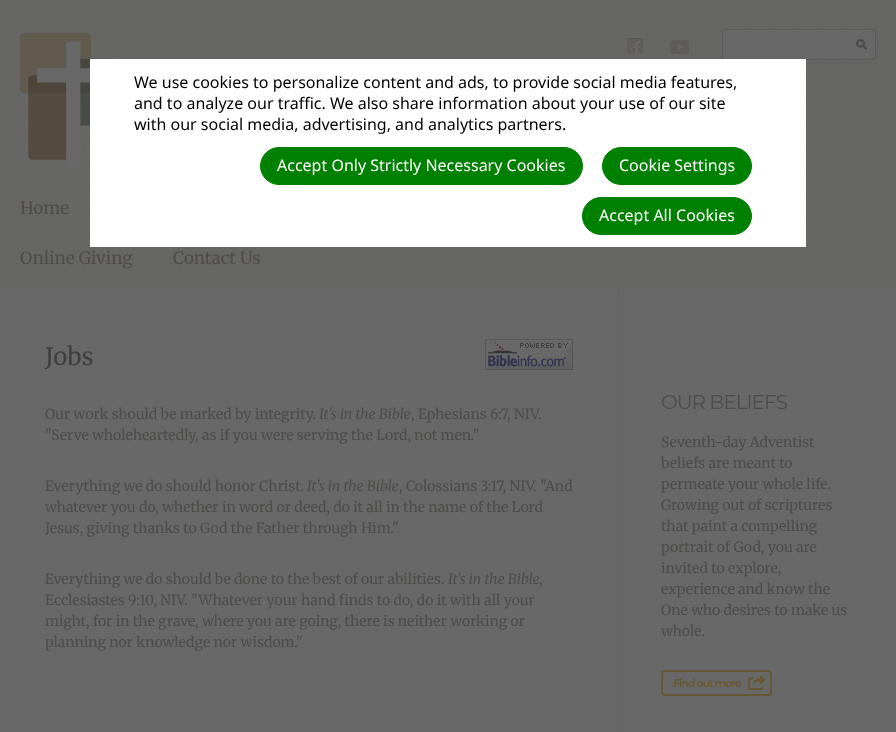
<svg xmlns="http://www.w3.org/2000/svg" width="896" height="732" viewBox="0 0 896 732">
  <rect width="100%" height="100%" fill="#666665"/>
  <image x="1" y="0" width="895" height="289" href="img/1.png"/>
  <image x="19" y="32" width="97" height="135" href="img/2.png"/>
  <rect x="722" y="29" width="154" height="31" rx="3" fill="#686868"/>
  <image x="856" y="39" width="12" height="11" href="img/5.png"/>
  <rect x="722.5" y="29.5" width="153" height="30" rx="2.5" fill="none" stroke="#5b5b5b"/>
  <path d="M90 59h716v188H90z" fill="#fff"/>
  <rect x="260.5" y="147.5" width="322" height="37" rx="18.5" fill="#008000" stroke="#008000"/>
  <rect x="602.5" y="147.5" width="149" height="37" rx="18.5" fill="#008000" stroke="#008000"/>
  <rect x="582.5" y="197.5" width="169" height="37" rx="18.5" fill="#008000" stroke="#008000"/>
  <image x="627" y="38" width="16" height="16" href="img/3.png"/>
  <image x="670" y="40" width="19" height="14" href="img/4.png"/>
  <path d="M0 289h896v443H0z" fill="#686868"/>
  <image x="485" y="339" width="88" height="31" href="img/6.png"/>
  <path d="M618 289h1v443H618z" fill="#636565"/>
  <image x="748" y="675" width="18" height="15" href="img/7.png"/>
  <rect x="662" y="671" width="109" height="24" rx="3" fill="none" stroke="#675835" stroke-width="2"/>
  <g font-family="Noto Sans" font-size="16" fill="#000">
    <text x="134" y="88">We use cookies to personalize content and ads, to provide social media features,</text>
    <text x="134" y="109">and to analyze our traffic. We also share information about your use of our site</text>
    <text x="134" y="130">with our social media, advertising, and analytics partners.</text>
  </g>
  <g font-family="Noto Sans" font-size="16" fill="#fff">
    <text x="277" y="171">Accept Only Strictly Necessary Cookies</text>
    <text x="619" y="171">Cookie Settings</text>
    <text x="599" y="221">Accept All Cookies</text>
  </g>
  <g font-family="Merriweather" font-size="17" fill="#4e4d4b">
    <text x="20" y="214">Home</text>
    <text x="20" y="264">Online Giving</text>
    <text x="173" y="264">Contact Us</text>
  </g>
  <text x="45" y="365" font-family="Merriweather" font-size="24" fill="#40403f">Jobs</text>
  <text x="45" y="419" font-family="Merriweather" font-size="14" fill="#4e4d4b">Our work should be marked by integrity.</text>
  <text x="319" y="419" font-family="Merriweather" font-size="14" font-style="italic" fill="#4e4d4b">It's in the Bible</text>
  <g font-family="Merriweather" font-size="14" fill="#4e4d4b">
    <text x="411" y="419">, Ephesians 6:7, NIV.</text>
    <text x="45" y="440">"Serve wholeheartedly, as if you were serving the Lord, not men."</text>
    <text x="45" y="491">Everything we do should honor Christ.</text>
  </g>
  <text x="307" y="491" font-family="Merriweather" font-size="14" font-style="italic" fill="#4e4d4b">It's in the Bible</text>
  <g font-family="Merriweather" font-size="14" fill="#4e4d4b">
    <text x="399" y="491">, Colossians 3:17, NIV. "And</text>
    <text x="45" y="512">whatever you do, whether in word or deed, do it all in the name of the Lord</text>
    <text x="45" y="533">Jesus, giving thanks to God the Father through Him."</text>
    <text x="45" y="584">Everything we do should be done to the best of our abilities.</text>
  </g>
  <text x="448" y="584" font-family="Merriweather" font-size="14" font-style="italic" fill="#4e4d4b">It's in the Bible</text>
  <g font-family="Merriweather" font-size="14" fill="#4e4d4b">
    <text x="539" y="584">,</text>
    <text x="45" y="605">Ecclesiastes 9:10, NIV. "Whatever your hand finds to do, do it with all your</text>
    <text x="45" y="626">might, for in the grave, where you are going, there is neither working or</text>
    <text x="45" y="647">planning nor knowledge nor wisdom."</text>
  </g>
  <text x="661" y="409" font-family="Montserrat" font-size="20" letter-spacing="-1" fill="#4e4d4b">OUR BELIEFS</text>
  <g font-family="Merriweather" font-size="14" fill="#4e4d4b">
    <text x="661" y="447">Seventh-day Adventist</text>
    <text x="661" y="468">beliefs are meant to</text>
    <text x="661" y="489">permeate your whole life.</text>
    <text x="661" y="510">Growing out of scriptures</text>
    <text x="661" y="531">that paint a compelling</text>
    <text x="661" y="552">portrait of God, you are</text>
    <text x="661" y="573">invited to explore,</text>
    <text x="661" y="594">experience and know the</text>
    <text x="661" y="615">One who desires to make us</text>
    <text x="661" y="636">whole.</text>
  </g>
  <text x="673" y="687" font-family="Montserrat" font-size="11" font-weight="600" letter-spacing="-1" fill="#675835">Find out more</text>
</svg>
